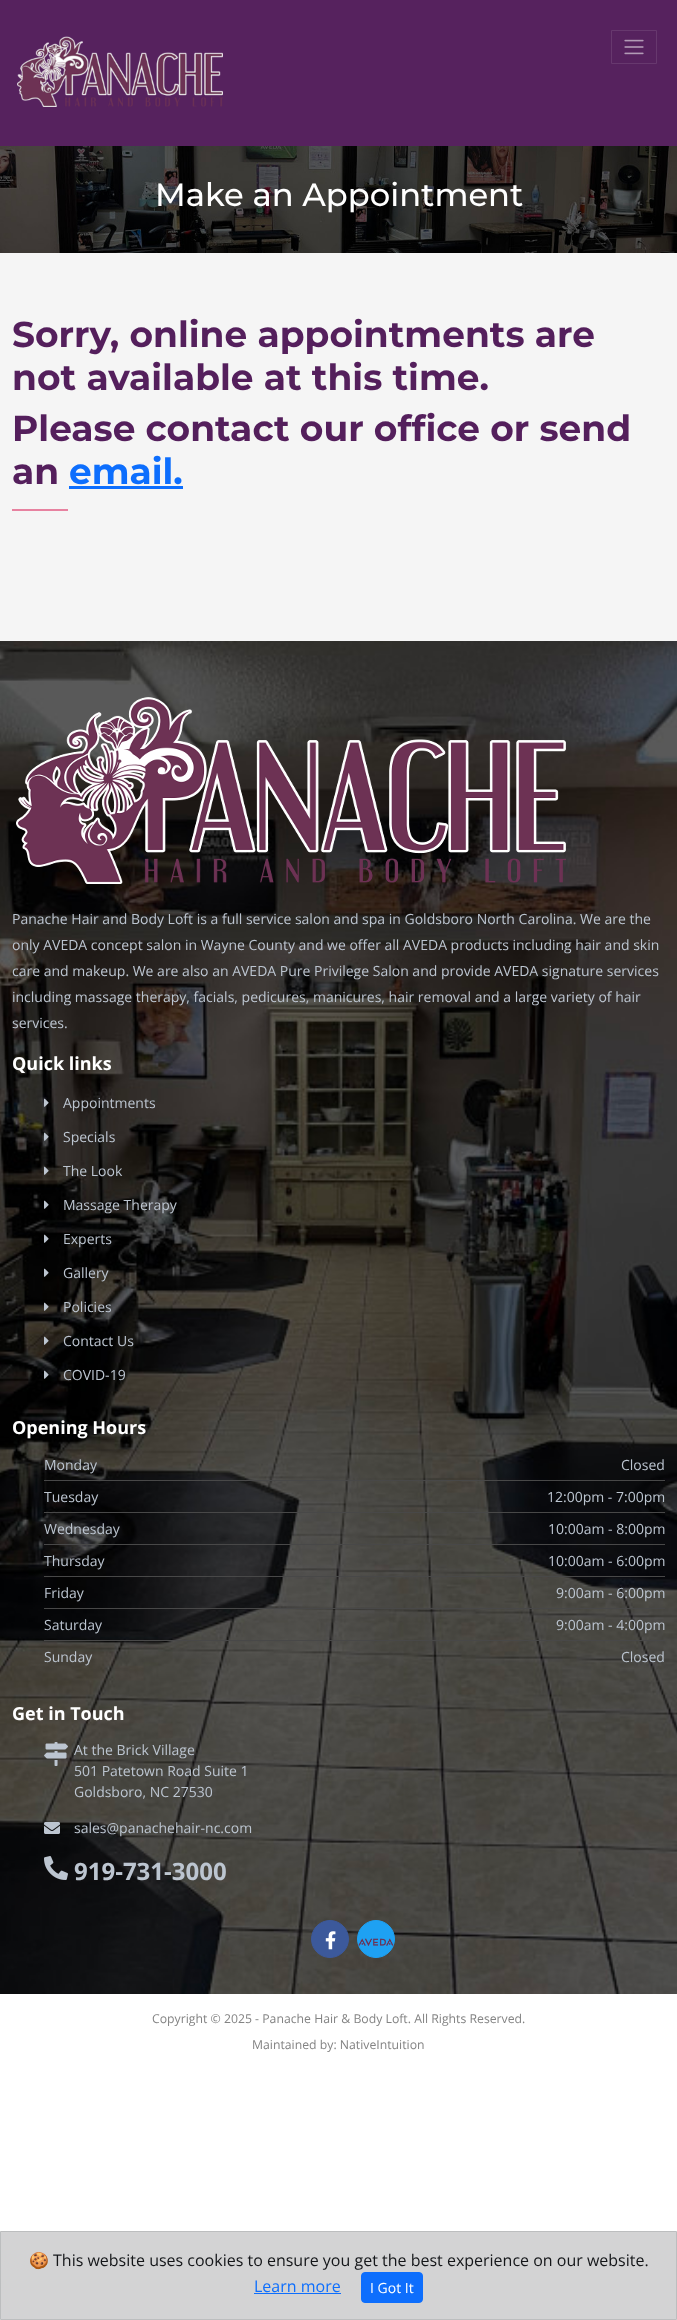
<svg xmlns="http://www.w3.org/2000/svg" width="677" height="2320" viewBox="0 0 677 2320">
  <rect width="100%" height="100%" fill="#fff"/>
  <path d="M0 0h677v146H0z" fill="#56225e"/>
  <image x="17" y="36" width="206" height="71" href="img/1.png"/>
  <path d="M611.5 30.5h45v33H611.5z" fill="none" stroke="#67386e"/>
  <image x="624" y="39" width="20" height="16" href="img/2.png"/>
  <image x="0" y="146" width="677" height="107" href="img/3.png"/>
  <path d="M0 253h677v388H0z" fill="#f5f5f5"/>
  <path d="M69 486h114v3H69z" fill="#0d6efd"/>
  <path d="M12 509h56v2H12z" fill="#e782a0"/>
  <image x="0" y="641" width="677" height="1353" href="img/4.png"/>
  <image x="16" y="697" width="550" height="187" href="img/5.png"/>
  <image x="44" y="1098" width="5" height="9" href="img/6.png"/>
  <image x="44" y="1132" width="5" height="9" href="img/7.png"/>
  <image x="44" y="1166" width="5" height="9" href="img/8.png"/>
  <image x="44" y="1200" width="5" height="9" href="img/9.png"/>
  <image x="44" y="1234" width="5" height="9" href="img/10.png"/>
  <image x="44" y="1268" width="5" height="9" href="img/11.png"/>
  <image x="44" y="1302" width="5" height="9" href="img/12.png"/>
  <image x="44" y="1336" width="5" height="9" href="img/13.png"/>
  <image x="44" y="1370" width="5" height="9" href="img/14.png"/>
  <path d="M44 1480h621v1H44z" fill="#484848"/>
  <path d="M44 1512h621v1H44z" fill="#484848"/>
  <path d="M44 1544h621v1H44z" fill="#484848"/>
  <path d="M44 1576h621v1H44z" fill="#484848"/>
  <path d="M44 1608h621v1H44z" fill="#484848"/>
  <path d="M44 1640h621v1H44z" fill="#484848"/>
  <image x="44" y="1742" width="24" height="24" href="img/15.png"/>
  <image x="44" y="1822" width="16" height="12" href="img/16.png"/>
  <image x="44" y="1856" width="24" height="24" href="img/17.png"/>
  <circle cx="330" cy="1939" r="18.5" fill="#3c599b" stroke="#3c599b"/>
  <image x="325" y="1931" width="11" height="19" href="img/18.png"/>
  <circle cx="376" cy="1939" r="18.5" fill="#1ea1f3" stroke="#1ea1f3"/>
  <image x="358" y="1938" width="36" height="8" href="img/19.png"/>
  <path d="M0.5 2231.5h676v88H0.5z" fill="#d3d3d4" stroke="#bcbebf"/>
  <path d="M254 2293h87v1H254z" fill="#0d6efd"/>
  <rect x="361.5" y="2272.5" width="61" height="30" rx="3.5" fill="#0d6efd" stroke="#0d6efd"/>
  <text x="155" y="206" font-family="Montserrat" font-size="32.2" font-weight="500" fill="#fff">Make an Appointment</text>
  <g font-family="Montserrat" font-size="36" font-weight="bold" fill="#541f5c">
    <text x="12" y="347">Sorry, online appointments are</text>
    <text x="12" y="390">not available at this time.</text>
    <text x="12" y="441">Please contact our office or send</text>
    <text x="12" y="484">an</text>
  </g>
  <text x="69" y="484" font-family="Montserrat" font-size="36" font-weight="bold" fill="#0d6efd">email.</text>
  <g font-family="Open Sans" font-size="14" fill="#bcc5d0">
    <text x="12" y="924">Panache Hair and Body Loft is a full service salon and spa in Goldsboro North Carolina. We are the</text>
    <text x="12" y="950">only AVEDA concept salon in Wayne County and we offer all AVEDA products including hair and skin</text>
    <text x="12" y="976">care and makeup. We are also an AVEDA Pure Privilege Salon and provide AVEDA signature services</text>
    <text x="12" y="1002">including massage therapy, facials, pedicures, manicures, hair removal and a large variety of hair</text>
    <text x="12" y="1028">services.</text>
  </g>
  <text x="12" y="1070" font-family="Open Sans" font-size="18" font-weight="bold" fill="#fff">Quick links</text>
  <g font-family="Open Sans" font-size="14" fill="#bcc5d0">
    <text x="63" y="1108">Appointments</text>
    <text x="63" y="1142">Specials</text>
    <text x="63" y="1176">The Look</text>
    <text x="63" y="1210">Massage Therapy</text>
    <text x="63" y="1244">Experts</text>
    <text x="63" y="1278">Gallery</text>
    <text x="63" y="1312">Policies</text>
    <text x="63" y="1346">Contact Us</text>
    <text x="63" y="1380">COVID-19</text>
  </g>
  <text x="12" y="1434" font-family="Open Sans" font-size="18" font-weight="bold" fill="#fff">Opening Hours</text>
  <g font-family="Open Sans" font-size="14" fill="#bcc5d0">
    <text x="44" y="1470">Monday</text>
    <text x="621" y="1470">Closed</text>
    <text x="44" y="1502">Tuesday</text>
    <text x="547" y="1502">12:00pm - 7:00pm</text>
    <text x="44" y="1534">Wednesday</text>
    <text x="548" y="1534">10:00am - 8:00pm</text>
    <text x="44" y="1566">Thursday</text>
    <text x="548" y="1566">10:00am - 6:00pm</text>
    <text x="44" y="1598">Friday</text>
    <text x="556" y="1598">9:00am - 6:00pm</text>
    <text x="44" y="1630">Saturday</text>
    <text x="556" y="1630">9:00am - 4:00pm</text>
    <text x="44" y="1662">Sunday</text>
    <text x="621" y="1662">Closed</text>
  </g>
  <text x="12" y="1720" font-family="Open Sans" font-size="18" font-weight="bold" fill="#fff">Get in Touch</text>
  <g font-family="Open Sans" font-size="14" fill="#bcc5d0">
    <text x="74" y="1755">At the Brick Village</text>
    <text x="74" y="1776">501 Patetown Road Suite 1</text>
    <text x="74" y="1797">Goldsboro, NC 27530</text>
    <text x="74" y="1833">sales@panachehair-nc.com</text>
  </g>
  <text x="74" y="1880" font-family="Open Sans" font-size="24" font-weight="bold" fill="#bcc5d0">919-731-3000</text>
  <g font-family="Open Sans" font-size="12.25" fill="#838383">
    <text x="152" y="2023">Copyright © 2025 - Panache Hair &amp; Body Loft. All Rights Reserved.</text>
    <text x="252" y="2049">Maintained by: NativeIntuition</text>
  </g>
  <text x="29" y="2266" font-family="Noto Color Emoji" font-size="16" fill="#141619">🍪</text>
  <text x="53" y="2266" font-family="Open Sans" font-size="16" fill="#141619">This website uses cookies to ensure you get the best experience on our website.</text>
  <text x="254" y="2292" font-family="Open Sans" font-size="16" fill="#0d6efd">Learn more</text>
  <text x="370" y="2293" font-family="Open Sans" font-size="14" fill="#fff">I Got It</text>
</svg>
